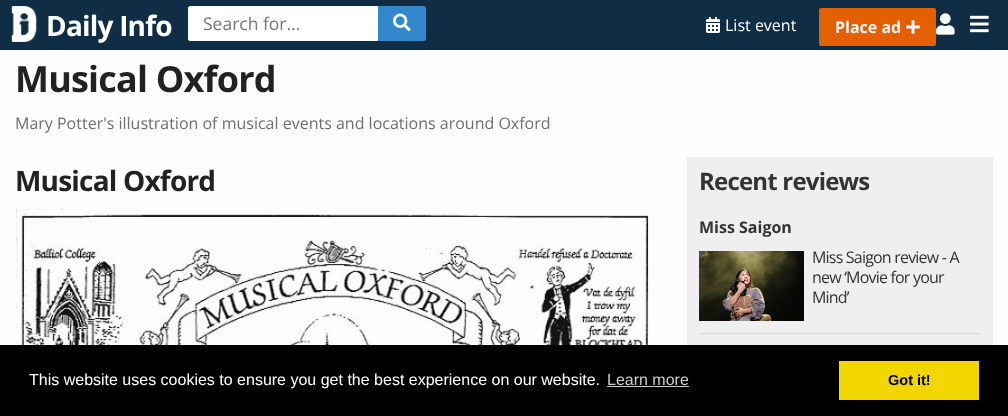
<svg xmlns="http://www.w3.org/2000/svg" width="1008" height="416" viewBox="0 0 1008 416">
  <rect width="100%" height="100%" fill="#0f2e46"/>
  <image x="11" y="6" width="26" height="36" href="img/1.png"/>
  <path d="M190 6H378V41H190C189 41 188 40 188 39V8C188 7 189 6 190 6Z" fill="#fff"/>
  <path d="M378 6H424C425 6 426 7 426 8V39C426 40 425 41 424 41H378Z" fill="#38c"/>
  <image x="393" y="13" width="18" height="19" href="img/2.png"/>
  <image x="706" y="17" width="14" height="16" href="img/3.png"/>
  <rect x="819" y="8" width="117" height="38" rx="2" fill="#e45f00"/>
  <image x="906" y="20" width="14" height="14" href="img/4.png"/>
  <image x="936" y="13" width="19" height="22" href="img/5.png"/>
  <image x="970" y="15" width="19" height="18" href="img/6.png"/>
  <path d="M0 50h1008v295H0z" fill="#fdfdfd"/>
  <image x="15" y="208" width="635" height="137" href="img/7.png"/>
  <path d="M687 157h306v188H687z" fill="#efefef"/>
  <path d="M699 333h282v1H699z" fill="#ddd"/>
  <image x="699" y="251" width="105" height="70" href="img/8.png"/>
  <path d="M0 345h1008v71H0z" fill="#000"/>
  <path d="M607 386h82v1H607z" fill="#ccc"/>
  <path d="M839 361h140v39H839z" fill="#f1d600"/>
  <text x="46" y="36" font-family="Open Sans" font-size="28" font-weight="bold" letter-spacing="-0.8" fill="#fff">Daily Info</text>
  <text x="203" y="30" font-family="Open Sans" font-size="17.5" fill="#757575">Search for...</text>
  <text x="725" y="31" font-family="Open Sans" font-size="16" fill="#fff">List event</text>
  <text x="835" y="33" font-family="Open Sans" font-size="16" font-weight="bold" fill="#f5f5f5">Place ad</text>
  <text x="15" y="92" font-family="Open Sans" font-size="36" font-weight="bold" letter-spacing="-0.8" fill="#222">Musical Oxford</text>
  <text x="15" y="129" font-family="Open Sans" font-size="16" fill="#6f6f6f">Mary Potter's illustration of musical events and locations around Oxford</text>
  <text x="15" y="191" font-family="Open Sans" font-size="28" font-weight="bold" letter-spacing="-0.8" fill="#222">Musical Oxford</text>
  <text x="699" y="190" font-family="Open Sans" font-size="24" font-weight="bold" letter-spacing="-0.8" fill="#333">Recent reviews</text>
  <text x="699" y="233" font-family="Open Sans" font-size="16" font-weight="bold" fill="#333">Miss Saigon</text>
  <g font-family="Open Sans" font-size="16" letter-spacing="-0.8" fill="#333">
    <text x="812" y="263">Miss Saigon review - A</text>
    <text x="812" y="283">new ‘Movie for your</text>
    <text x="812" y="303">Mind’</text>
  </g>
  <text x="29" y="385" font-family="Liberation Sans" font-size="16" fill="#fff">This website uses cookies to ensure you get the best experience on our website.</text>
  <text x="607" y="385" font-family="Liberation Sans" font-size="16" fill="#ccc">Learn more</text>
  <text x="888" y="385" font-family="Liberation Sans" font-size="14.5" font-weight="bold" fill="#000">Got it!</text>
</svg>
